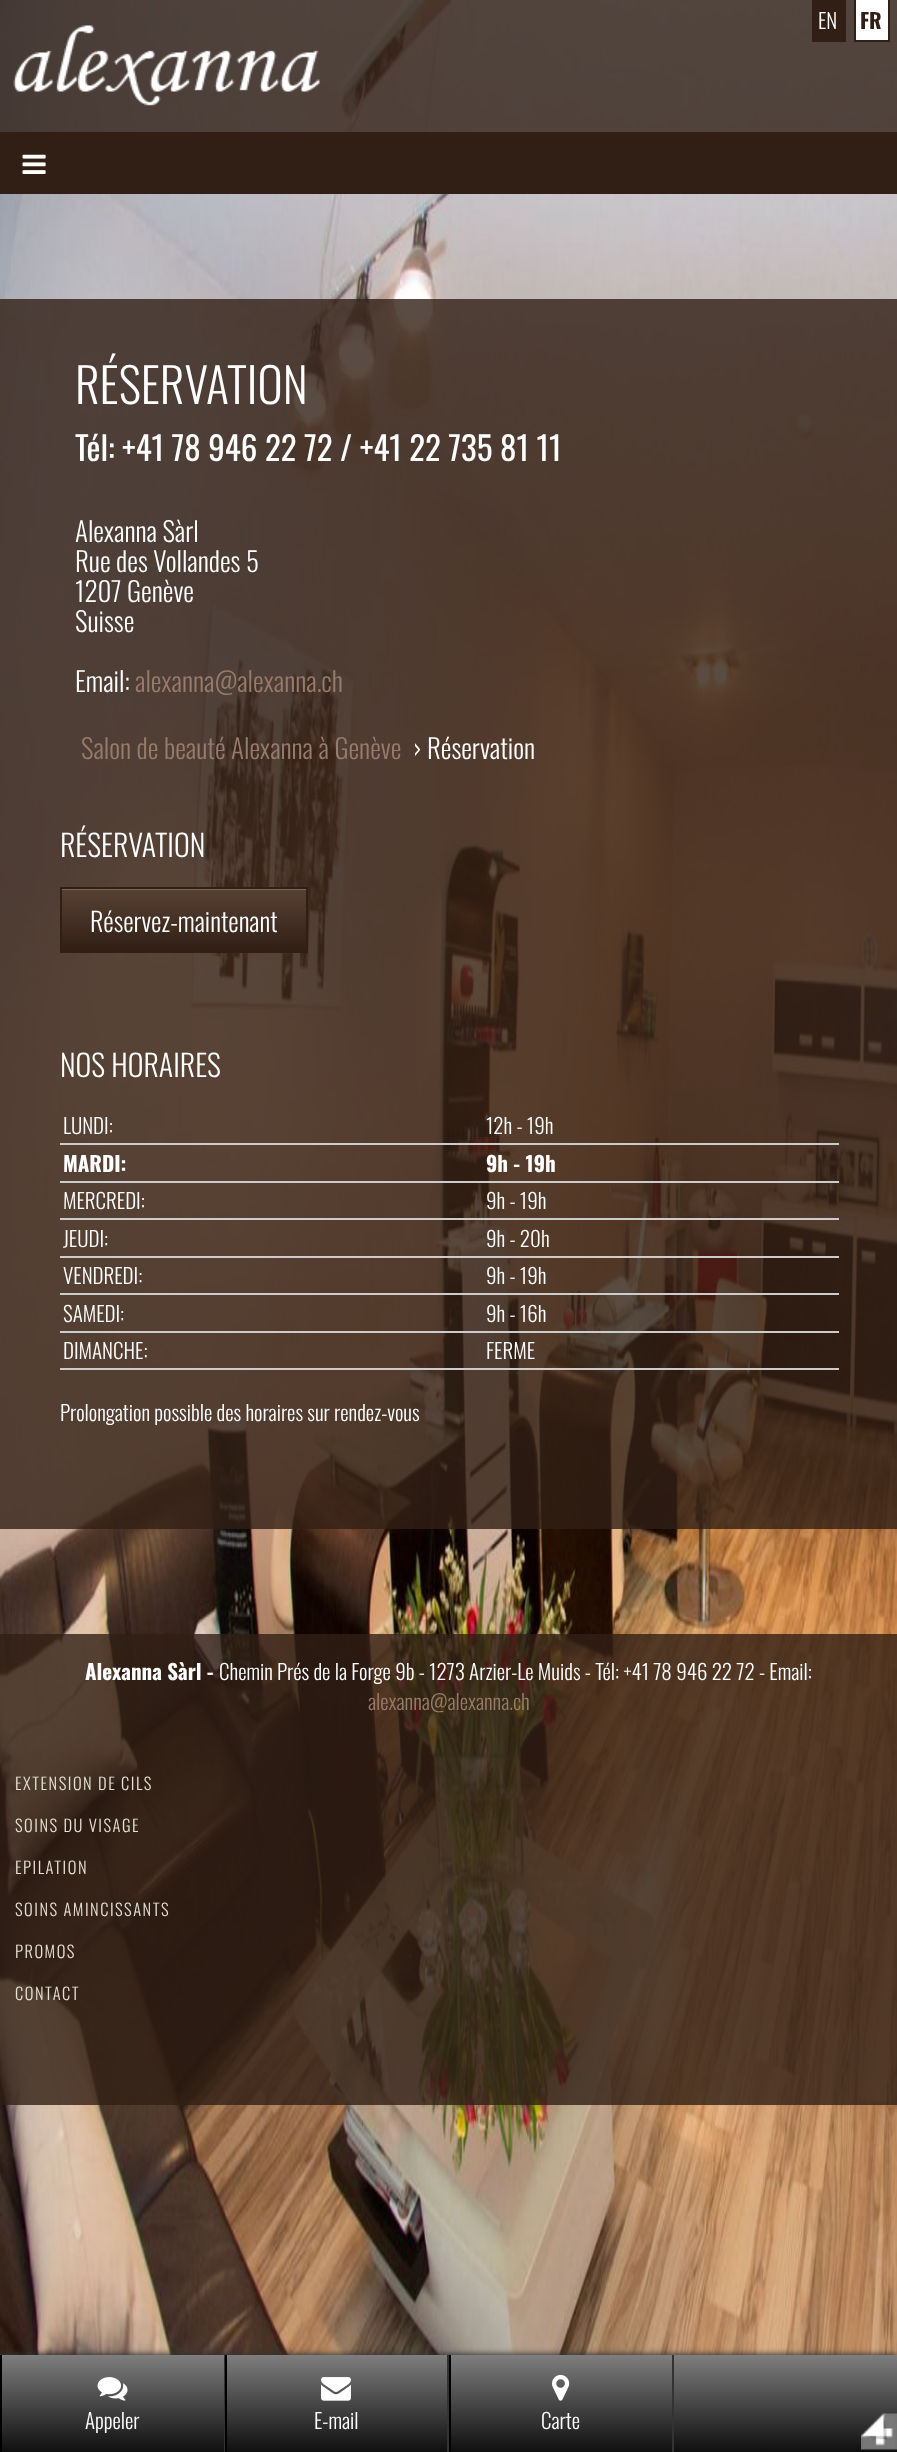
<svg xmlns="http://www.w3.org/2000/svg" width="897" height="2452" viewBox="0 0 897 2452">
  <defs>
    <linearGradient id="g1" gradientUnits="userSpaceOnUse" x1="184" y1="888" x2="184" y2="951"><stop offset="0" stop-color="#584235"/><stop offset="1" stop-color="#311f15"/></linearGradient>
    <linearGradient id="g2" gradientUnits="userSpaceOnUse" x1="449" y1="2355" x2="449" y2="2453"><stop offset="0" stop-color="#7d7e7d"/><stop offset="1" stop-color="#0e0e0e"/></linearGradient>
  </defs>
  <rect width="100%" height="100%" fill="#fff"/>
  <image x="0" y="0" width="897" height="2355" href="img/1.png"/>
  <path d="M0 0h897v132H0z" fill="#311f15cc"/>
  <path d="M812 0h34v42H812z" fill="#311f15"/>
  <path d="M855 -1h34v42H855z" fill="#fff" stroke="#311f15" stroke-width="2"/>
  <image x="13" y="25" width="307" height="81" href="img/2.png"/>
  <path d="M0 132h897v62H0z" fill="#311f15"/>
  <image x="22" y="154" width="24" height="20" href="img/3.png"/>
  <path d="M0 299h897v1230H0z" fill="#311f15cc"/>
  <path d="M62 890h244v61H62z" fill="url(#g1)"/>
  <path d="M62 889h244v1H62z" fill="#79675d"/>
  <path d="M61 888h246v64H61z" fill="none" stroke="#311f15" stroke-width="2"/>
  <path d="M60 1143h779v2H60z" fill="#ccc"/>
  <path d="M60 1181h779v2H60z" fill="#ccc"/>
  <path d="M60 1218h779v2H60z" fill="#ccc"/>
  <path d="M60 1256h779v2H60z" fill="#ccc"/>
  <path d="M60 1293h779v2H60z" fill="#ccc"/>
  <path d="M60 1331h779v2H60z" fill="#ccc"/>
  <path d="M60 1368h779v2H60z" fill="#ccc"/>
  <path d="M0 1634h897v471H0z" fill="#311f15cc"/>
  <path d="M0 2354h897v97H0z" fill="#333" filter="blur(3px)"/>
  <path d="M2 2355h895v97H2z" fill="url(#g2)"/>
  <path d="M224 2355h1v97H224z" fill="#333"/>
  <path d="M0 2355h2v97H0z" fill="#000"/>
  <image x="97" y="2377" width="31" height="24" href="img/4.png"/>
  <path d="M447 2355h2v97H447z" fill="#333"/>
  <path d="M225 2355h2v97H225z" fill="#000"/>
  <image x="321" y="2377" width="30" height="24" href="img/5.png"/>
  <path d="M672 2355h2v97H672z" fill="#333"/>
  <path d="M449 2355h2v97H449z" fill="#000"/>
  <image x="552" y="2374" width="18" height="27" href="img/6.png"/>
  <image x="861" y="2413" width="36" height="37" href="img/7.png"/>
  <text x="818" y="29" font-family="Oswald" font-size="21" font-weight="300" fill="#fff">EN</text>
  <text x="860" y="29" font-family="Oswald" font-size="21" font-weight="bold" fill="#311f15">FR</text>
  <text x="75" y="404" font-family="Oswald" font-size="48" font-weight="300" fill="#fff">RÉSERVATION</text>
  <text x="75" y="461" font-family="Oswald" font-size="33" fill="#fff">Tél: +41 78 946 22 72 / +41 22 735 81 11</text>
  <g font-family="Oswald" font-size="27" font-weight="300" fill="#fff">
    <text x="75" y="542">Alexanna Sàrl</text>
    <text x="75" y="572">Rue des Vollandes 5</text>
    <text x="75" y="602">1207 Genève</text>
    <text x="75" y="632">Suisse</text>
    <text x="75" y="692">Email:</text>
  </g>
  <g font-family="Oswald" font-size="27" font-weight="300" fill="#987b6a">
    <text x="135" y="692">alexanna@alexanna.ch</text>
    <text x="81" y="759">Salon de beauté Alexanna à Genève</text>
  </g>
  <text x="413" y="759" font-family="Oswald" font-size="27" font-weight="300" fill="#fff">› Réservation</text>
  <text x="60" y="857" font-family="Oswald" font-size="30" font-weight="300" fill="#fff">RÉSERVATION</text>
  <text x="90" y="932" font-family="Oswald" font-size="26.25" font-weight="300" fill="#fff">Réservez-maintenant</text>
  <text x="60" y="1077" font-family="Oswald" font-size="30" font-weight="300" fill="#fff">NOS HORAIRES</text>
  <g font-family="Oswald" font-size="21" font-weight="300" fill="#fff">
    <text x="63" y="1134">LUNDI:</text>
    <text x="486" y="1134">12h - 19h</text>
  </g>
  <g font-family="Oswald" font-size="21" font-weight="bold" fill="#fff">
    <text x="63" y="1172">MARDI:</text>
    <text x="486" y="1172">9h - 19h</text>
  </g>
  <g font-family="Oswald" font-size="21" font-weight="300" fill="#fff">
    <text x="63" y="1209">MERCREDI:</text>
    <text x="486" y="1209">9h - 19h</text>
    <text x="63" y="1247">JEUDI:</text>
    <text x="486" y="1247">9h - 20h</text>
    <text x="63" y="1284">VENDREDI:</text>
    <text x="486" y="1284">9h - 19h</text>
    <text x="63" y="1322">SAMEDI:</text>
    <text x="486" y="1322">9h - 16h</text>
    <text x="63" y="1359">DIMANCHE:</text>
    <text x="486" y="1359">FERME</text>
    <text x="60" y="1421">Prolongation possible des horaires sur rendez-vous</text>
  </g>
  <text x="85" y="1680" font-family="Oswald" font-size="21" font-weight="bold" fill="#fff">Alexanna Sàrl -</text>
  <text x="219" y="1680" font-family="Oswald" font-size="21" font-weight="300" fill="#fff">Chemin Prés de la Forge 9b - 1273 Arzier-Le Muids - Tél: +41 78 946 22 72 - Email:</text>
  <text x="368" y="1710" font-family="Oswald" font-size="21" font-weight="300" fill="#987b6a">alexanna@alexanna.ch</text>
  <g font-family="Oswald" font-size="16.5" font-weight="300" letter-spacing="1.5" fill="#e6e2d7">
    <text x="15" y="1790">EXTENSION DE CILS</text>
    <text x="15" y="1832">SOINS DU VISAGE</text>
    <text x="15" y="1874">EPILATION</text>
    <text x="15" y="1916">SOINS AMINCISSANTS</text>
    <text x="15" y="1958">PROMOS</text>
    <text x="15" y="2000">CONTACT</text>
  </g>
  <g font-family="Oswald" font-size="21" font-weight="300" fill="#fff">
    <text x="85" y="2429">Appeler</text>
    <text x="314" y="2429">E-mail</text>
    <text x="541" y="2429">Carte</text>
  </g>
</svg>
